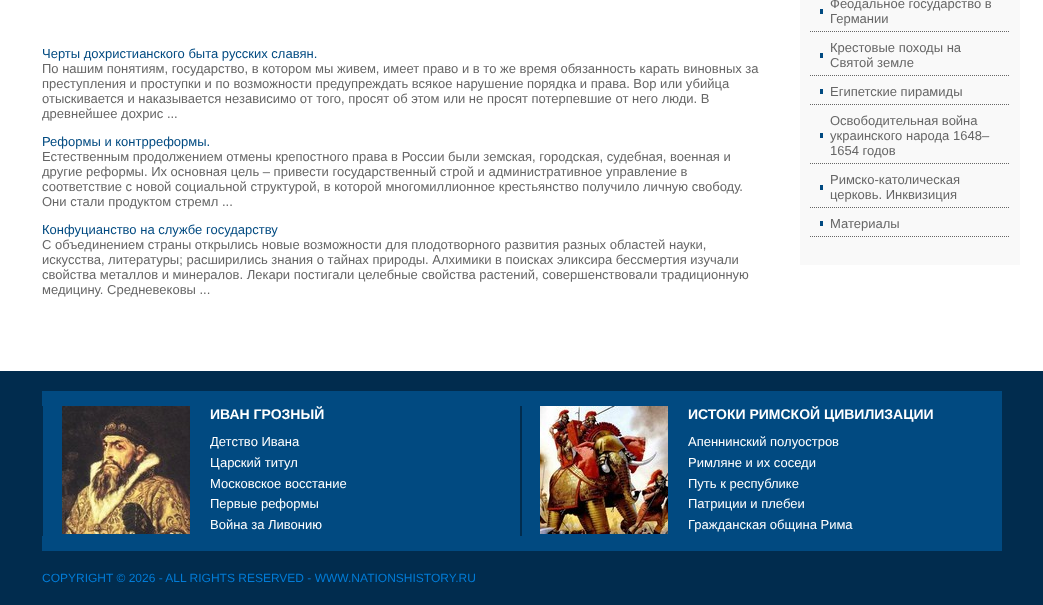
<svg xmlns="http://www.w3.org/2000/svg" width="1043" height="605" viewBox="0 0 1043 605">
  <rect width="100%" height="100%" fill="#012c4e"/>
  <path d="M0 0h1043v371H0z" fill="#fff"/>
  <path d="M800 0h220v265H800z" fill="#f9f9f9"/>
  <path d="M820 9h3v5H820z" fill="#014a81"/>
  <path d="M810 31.5H1010" fill="none" stroke="#666" stroke-dasharray="1 1"/>
  <path d="M820 53h3v5H820z" fill="#014a81"/>
  <path d="M810 75.5H1010" fill="none" stroke="#666" stroke-dasharray="1 1"/>
  <path d="M820 89h3v5H820z" fill="#014a81"/>
  <path d="M810 104.5H1010" fill="none" stroke="#666" stroke-dasharray="1 1"/>
  <path d="M820 133h3v5H820z" fill="#014a81"/>
  <path d="M810 163.5H1010" fill="none" stroke="#666" stroke-dasharray="1 1"/>
  <path d="M820 185h3v5H820z" fill="#014a81"/>
  <path d="M810 207.5H1010" fill="none" stroke="#666" stroke-dasharray="1 1"/>
  <path d="M820 221h3v5H820z" fill="#014a81"/>
  <path d="M810 236.5H1010" fill="none" stroke="#666" stroke-dasharray="1 1"/>
  <path d="M42 391h960v160H42z" fill="#014a81"/>
  <image x="42" y="406" width="480" height="130" href="img/1.png"/>
  <image x="62" y="406" width="128" height="128" href="img/2.png"/>
  <image x="540" y="406" width="128" height="128" href="img/3.png"/>
  <text x="42" y="58" font-family="Liberation Sans" font-size="13" fill="#014a81">Черты дохристианского быта русских славян.</text>
  <g font-family="Liberation Sans" font-size="13" fill="#666">
    <text x="42" y="73">По нашим понятиям, государство, в котором мы живем, имеет право и в то же время обязанность карать виновных за</text>
    <text x="42" y="88">преступления и проступки и по возможности предупреждать всякое нарушение порядка и права. Вор или убийца</text>
    <text x="42" y="103">отыскивается и наказывается независимо от того, просят об этом или не просят потерпевшие от него люди. В</text>
    <text x="42" y="118">древнейшее дохрис ...</text>
  </g>
  <text x="42" y="146" font-family="Liberation Sans" font-size="13" fill="#014a81">Реформы и контрреформы.</text>
  <g font-family="Liberation Sans" font-size="13" fill="#666">
    <text x="42" y="161">Естественным продолжением отмены крепостного права в России были земская, городская, судебная, военная и</text>
    <text x="42" y="176">другие реформы. Их основная цель – привести государственный строй и административное управление в</text>
    <text x="42" y="191">соответствие с новой социальной структурой, в которой многомиллионное крестьянство получило личную свободу.</text>
    <text x="42" y="206">Они стали продуктом стремл ...</text>
  </g>
  <text x="42" y="234" font-family="Liberation Sans" font-size="13" fill="#014a81">Конфуцианство на службе государству</text>
  <g font-family="Liberation Sans" font-size="13" fill="#666">
    <text x="42" y="249">С объединением страны открылись новые возможности для плодотворного развития разных областей науки,</text>
    <text x="42" y="264">искусства, литературы; расширились знания о тайнах природы. Алхимики в поисках эликсира бессмертия изучали</text>
    <text x="42" y="279">свойства металлов и минералов. Лекари постигали целебные свойства растений, совершенствовали традиционную</text>
    <text x="42" y="294">медицину. Средневековы ...</text>
    <text x="830" y="8">Феодальное государство в</text>
    <text x="830" y="23">Германии</text>
    <text x="830" y="52">Крестовые походы на</text>
    <text x="830" y="67">Святой земле</text>
    <text x="830" y="96">Египетские пирамиды</text>
    <text x="830" y="125">Освободительная война</text>
    <text x="830" y="140">украинского народа 1648–</text>
    <text x="830" y="155">1654 годов</text>
    <text x="830" y="184">Римско-католическая</text>
    <text x="830" y="199">церковь. Инквизиция</text>
    <text x="830" y="228">Материалы</text>
  </g>
  <text x="210" y="419" font-family="Liberation Sans" font-size="14" font-weight="bold" fill="#fff">ИВАН ГРОЗНЫЙ</text>
  <g font-family="Liberation Sans" font-size="13" fill="#fff">
    <text x="210" y="446">Детство Ивана</text>
    <text x="210" y="467">Царский титул</text>
    <text x="210" y="488">Московское восстание</text>
    <text x="210" y="508">Первые реформы</text>
    <text x="210" y="529">Война за Ливонию</text>
  </g>
  <text x="688" y="419" font-family="Liberation Sans" font-size="14" font-weight="bold" fill="#fff">ИСТОКИ РИМСКОЙ ЦИВИЛИЗАЦИИ</text>
  <g font-family="Liberation Sans" font-size="13" fill="#fff">
    <text x="688" y="446">Апеннинский полуостров</text>
    <text x="688" y="467">Римляне и их соседи</text>
    <text x="688" y="488">Путь к республике</text>
    <text x="688" y="508">Патриции и плебеи</text>
    <text x="688" y="529">Гражданская община Рима</text>
  </g>
  <text x="42" y="582" font-family="Liberation Sans" font-size="12" fill="#027cd7">COPYRIGHT © 2026 - ALL RIGHTS RESERVED - WWW.NATIONSHISTORY.RU</text>
</svg>
